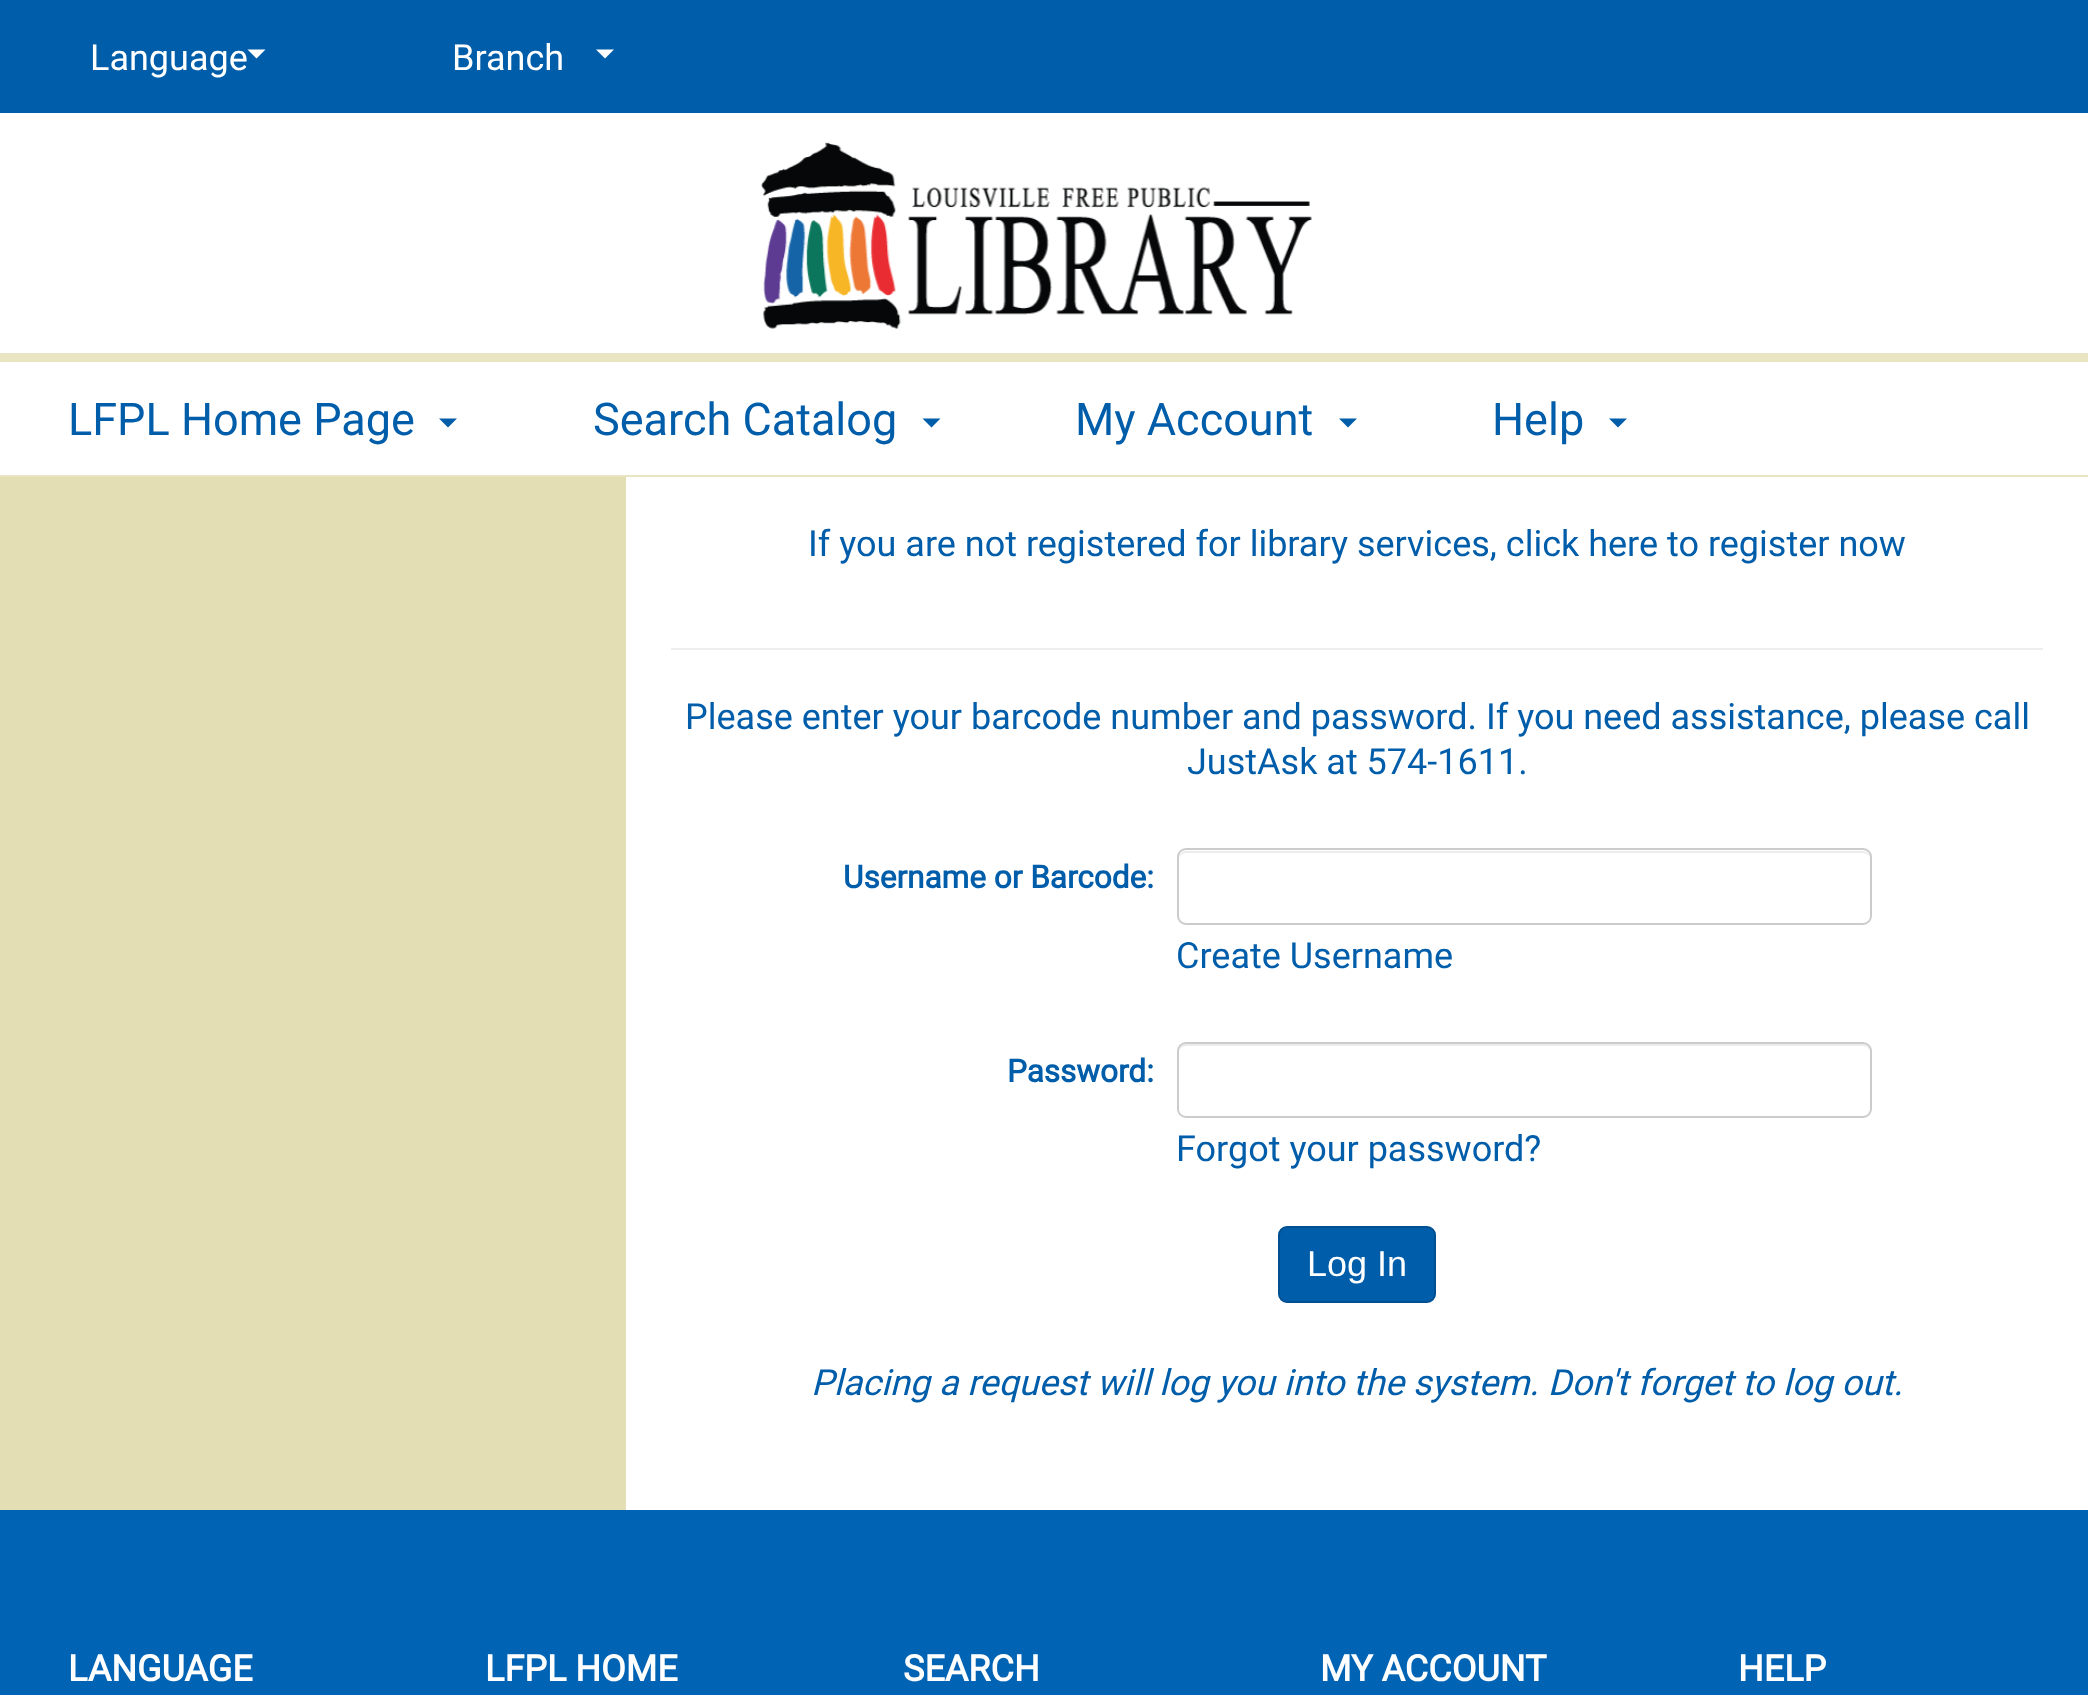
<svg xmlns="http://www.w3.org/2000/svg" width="2088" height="1695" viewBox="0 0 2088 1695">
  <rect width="100%" height="100%" fill="#005daa"/>
  <path d="M0 475h2088v2H0z" fill="#e9e5c3"/>
  <path d="M247.5 49.5H265.5L256.5 58.5Z" fill="#fff"/>
  <path d="M596 49.5H614L605 58.5Z" fill="#fff"/>
  <path d="M0 362h2088v113H0z" fill="#fff"/>
  <path d="M0 353h2088v9H0z" fill="#e9e5c3"/>
  <path d="M439 418.5H457L448 427.5Z" fill="#005daa"/>
  <path d="M922.5 418.5H940.5L931.5 427.5Z" fill="#005daa"/>
  <path d="M1339 418.5H1357L1348 427.5Z" fill="#005daa"/>
  <path d="M1609 418.5H1627L1618 427.5Z" fill="#005daa"/>
  <path d="M0 113h2088v240H0z" fill="#fff"/>
  <image x="761" y="142" width="551" height="187" href="img/1.png"/>
  <path d="M0 477h626v1033H0z" fill="#e3deb4"/>
  <path d="M626 477h1462v1033H626z" fill="#fff"/>
  <path d="M671 648h1372v2H671z" fill="#eee"/>
  <path d="M1186 853H1863C1867 853 1870 856 1870 860C1870 856 1868 851 1863 851H1186C1181 851 1179 856 1179 860C1179 856 1182 853 1186 853Z" fill="#ececec"/>
  <rect x="1178" y="849" width="693" height="75" rx="8" fill="none" stroke="#ccc" stroke-width="2"/>
  <path d="M1186 1046H1863C1867 1046 1870 1049 1870 1053C1870 1049 1868 1044 1863 1044H1186C1181 1044 1179 1049 1179 1053C1179 1049 1182 1046 1186 1046Z" fill="#ececec"/>
  <rect x="1178" y="1043" width="693" height="74" rx="8" fill="none" stroke="#ccc" stroke-width="2"/>
  <rect x="1279" y="1227" width="156" height="75" rx="8" fill="#005daa" stroke="#004f90" stroke-width="2"/>
  <path d="M0 1510h2088v185H0z" fill="#0063b4"/>
  <g font-family="Roboto" font-size="36" fill="#fff">
    <text x="90" y="70">Language</text>
    <text x="452" y="70">Branch</text>
  </g>
  <g font-family="Roboto" font-size="45" fill="#005daa">
    <text x="68" y="435">LFPL Home Page</text>
    <text x="593" y="435">Search Catalog</text>
    <text x="1075" y="435">My Account</text>
    <text x="1492" y="435">Help</text>
  </g>
  <g font-family="Roboto" font-size="36" fill="#005daa">
    <text x="808" y="556">If you are not registered for library services, click here to register now</text>
    <text x="685" y="729">Please enter your barcode number and password. If you need assistance, please call</text>
    <text x="1187" y="774">JustAsk at 574-1611.</text>
  </g>
  <text x="843" y="888" font-family="Roboto" font-size="31.5" font-weight="bold" fill="#005daa">Username or Barcode:</text>
  <text x="1176" y="968" font-family="Roboto" font-size="36" fill="#005daa">Create Username</text>
  <text x="1007" y="1082" font-family="Roboto" font-size="31.5" font-weight="bold" fill="#005daa">Password:</text>
  <text x="1176" y="1161" font-family="Roboto" font-size="36" fill="#005daa">Forgot your password?</text>
  <text x="1307" y="1276" font-family="Liberation Sans" font-size="36" fill="#fff">Log In</text>
  <text x="811" y="1395" font-family="Roboto" font-size="36" font-style="italic" fill="#005daa">Placing a request will log you into the system. Don't forget to log out.</text>
  <g font-family="Roboto" font-size="36" font-weight="bold" fill="#fff">
    <text x="68" y="1681">LANGUAGE</text>
    <text x="485" y="1681">LFPL HOME</text>
    <text x="903" y="1681">SEARCH</text>
    <text x="1320" y="1681">MY ACCOUNT</text>
    <text x="1738" y="1681">HELP</text>
  </g>
</svg>
